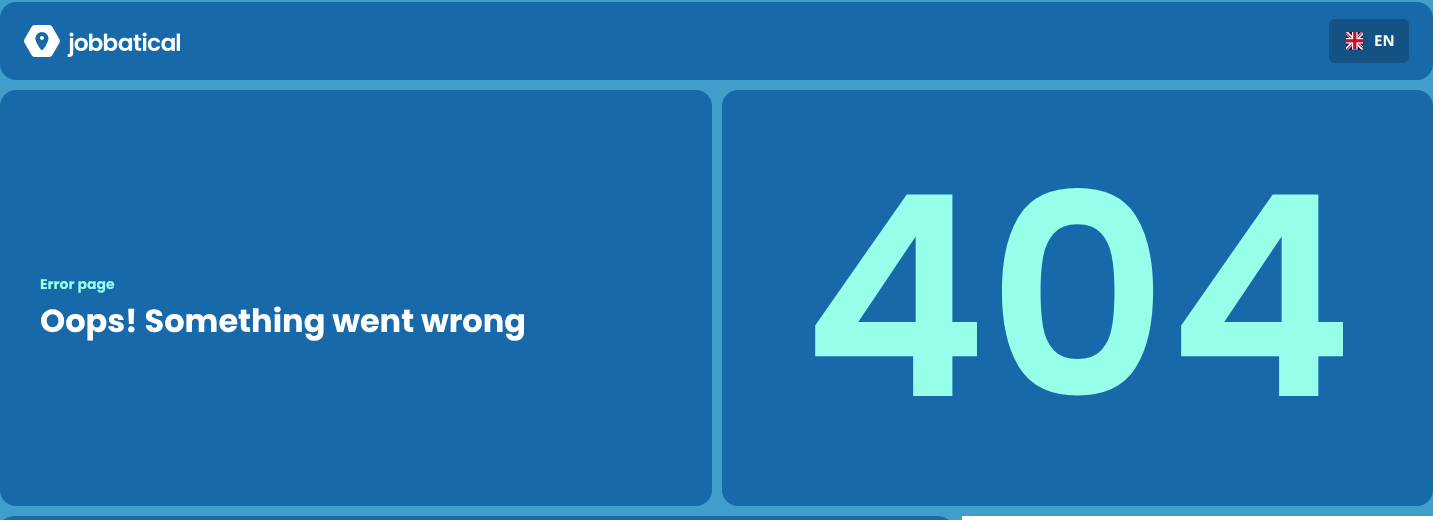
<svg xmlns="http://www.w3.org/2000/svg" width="1433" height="520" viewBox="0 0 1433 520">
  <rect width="100%" height="100%" fill="#419eca"/>
  <rect y="2" width="1433" height="78" rx="16" fill="#1869aa"/>
  <image x="24" y="25" width="156" height="32" href="img/1.png"/>
  <rect x="1329" y="19" width="80" height="44" rx="6" fill="#145284"/>
  <image x="1346" y="32" width="17" height="18" href="img/2.png"/>
  <rect y="90" width="712" height="416" rx="16" fill="#1869aa"/>
  <rect x="722" y="90" width="711" height="416" rx="16" fill="#1869aa"/>
  <rect y="516" width="952" height="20" rx="16" fill="#1869aa"/>
  <path d="M962 516h471v4H962z" fill="#fff"/>
  <text x="1374" y="46" font-family="Noto Sans" font-size="15" font-weight="bold" fill="#fff">EN</text>
  <text x="40" y="289" font-family="Poppins" font-size="14" font-weight="bold" fill="#97ffe9">Error page</text>
  <text x="40" y="332" font-family="Poppins" font-size="32" font-weight="bold" fill="#fff">Oops! Something went wrong</text>
  <text x="802" y="396" font-family="Poppins" font-size="280" font-weight="600" fill="#97ffe9">404</text>
</svg>
